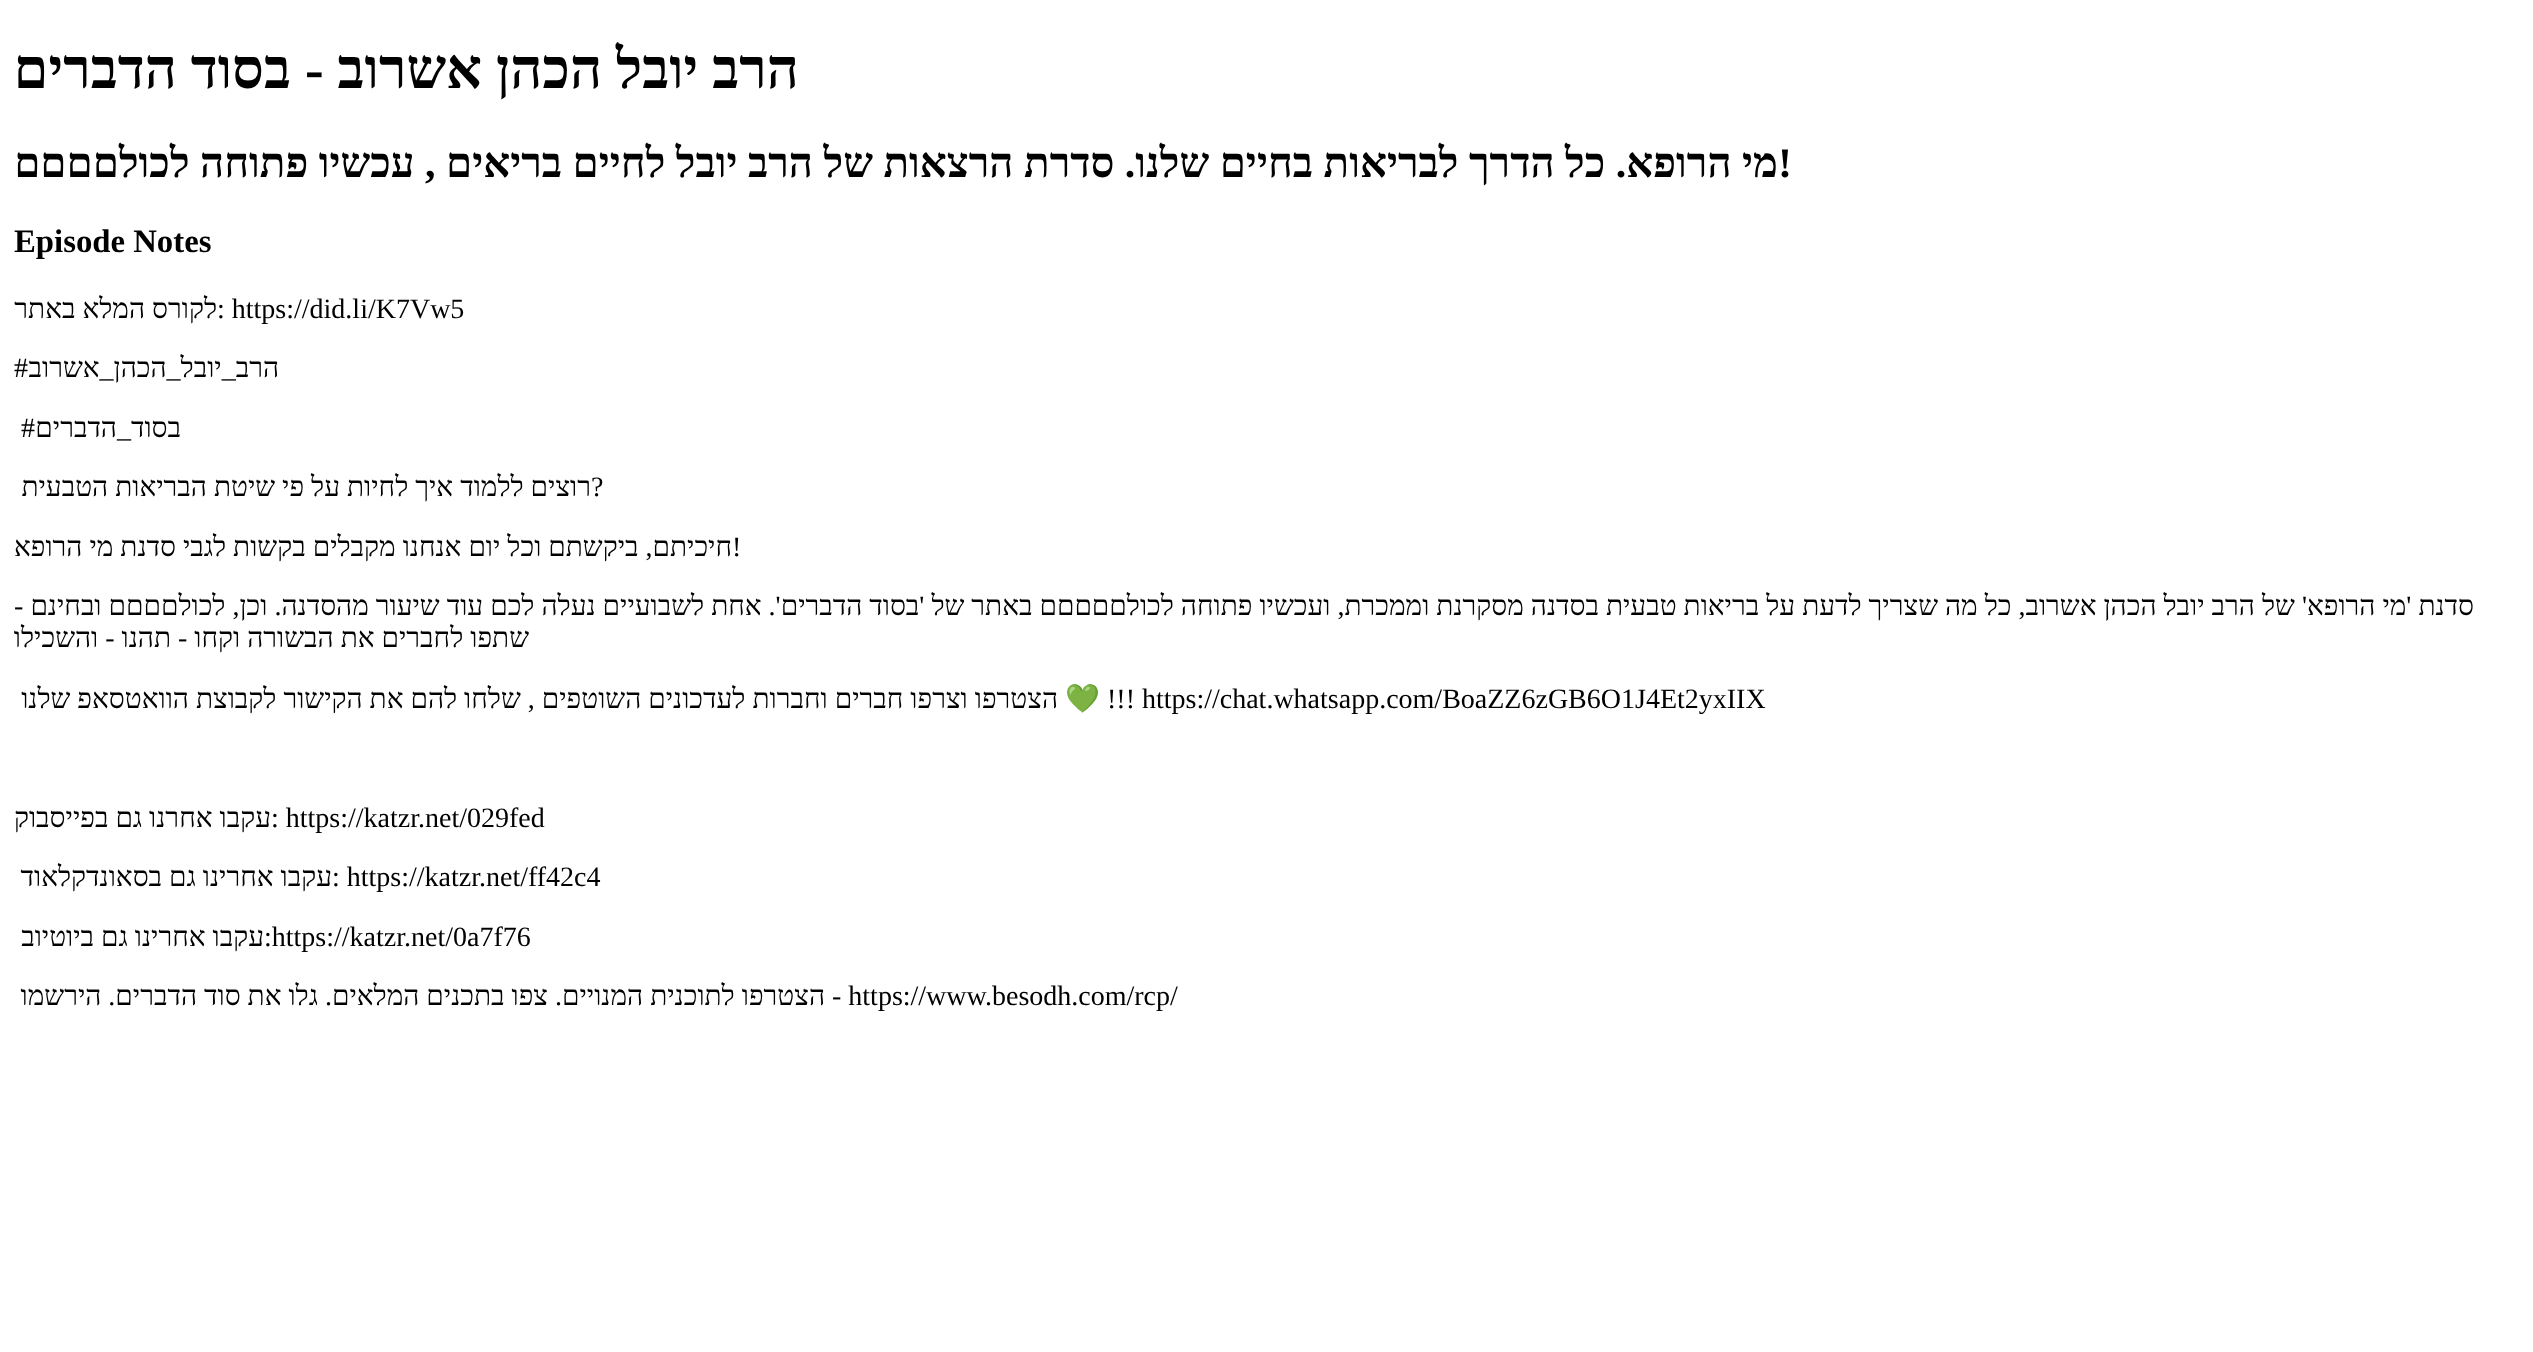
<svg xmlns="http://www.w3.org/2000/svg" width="2533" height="1352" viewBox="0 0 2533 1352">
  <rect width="100%" height="100%" fill="#fff"/>
  <text x="799" y="88" font-family="Liberation Serif" font-size="56" font-weight="bold" direction="rtl" fill="#000">הרב יובל הכהן אשרוב - בסוד הדברים</text>
  <text x="1778" y="177" font-family="Liberation Serif" font-size="42" font-weight="bold" fill="#000">!</text>
  <g font-family="Liberation Serif" font-size="42" font-weight="bold" direction="rtl" fill="#000">
    <text x="1778" y="177">מי הרופא. כל הדרך לבריאות</text>
    <text x="1313" y="177">בחיים שלנו. סדרת הרצאות של הרב יובל לחיים בריאים , עכשיו פתוחה לכולםםםם</text>
  </g>
  <text x="14" y="252" font-family="Liberation Serif" font-size="32.75" font-weight="bold" fill="#000">Episode Notes</text>
  <text x="217" y="318" font-family="Liberation Serif" font-size="28" fill="#000">: https://did.li/K7Vw5</text>
  <g font-family="Liberation Serif" font-size="28" direction="rtl" fill="#000">
    <text x="217" y="318">לקורס המלא באתר</text>
    <text x="279" y="377">הרב_יובל_הכהן_אשרוב</text>
  </g>
  <text x="14" y="377" font-family="Liberation Serif" font-size="28" fill="#000">#</text>
  <text x="181" y="437" font-family="Liberation Serif" font-size="28" direction="rtl" fill="#000">בסוד_הדברים</text>
  <g font-family="Liberation Serif" font-size="28" fill="#000">
    <text x="21" y="437">#</text>
    <text x="591" y="496">?</text>
  </g>
  <text x="591" y="496" font-family="Liberation Serif" font-size="28" direction="rtl" fill="#000">רוצים ללמוד איך לחיות על פי שיטת הבריאות הטבעית</text>
  <text x="732" y="556" font-family="Liberation Serif" font-size="28" fill="#000">!</text>
  <g font-family="Liberation Serif" font-size="28" direction="rtl" fill="#000">
    <text x="732" y="556">חיכיתם, ביקשתם וכל יום אנחנו מקבלים בקשות לגבי סדנת מי הרופא</text>
    <text x="2474" y="615">סדנת 'מי הרופא' של הרב יובל הכהן אשרוב, כל מה שצריך לדעת על בריאות טבעית בסדנה מסקרנת וממכרת, ועכשיו פתוחה לכולםםםםם באתר של 'בסוד הדברים'. אחת לשבועיים נעלה לכם עוד שיעור מהסדנה. וכן, לכולםםםם ובחינם -</text>
    <text x="529" y="647">שתפו לחברים את הבשורה וקחו - תהנו - והשכילו</text>
  </g>
  <text x="1107" y="708" font-family="Liberation Serif" font-size="28" fill="#000">!!! https://chat.whatsapp.com/BoaZZ6zGB6O1J4Et2yxIIX</text>
  <text x="1065" y="708" font-family="Noto Color Emoji" font-size="28" fill="#000">💚</text>
  <text x="1058" y="708" font-family="Liberation Serif" font-size="28" direction="rtl" fill="#000">הצטרפו וצרפו חברים וחברות לעדכונים השוטפים , שלחו להם את הקישור לקבוצת הוואטסאפ שלנו</text>
  <text x="271" y="827" font-family="Liberation Serif" font-size="28" fill="#000">: https://katzr.net/029fed</text>
  <text x="271" y="827" font-family="Liberation Serif" font-size="28" direction="rtl" fill="#000">עקבו אחרנו גם בפייסבוק</text>
  <text x="332" y="886" font-family="Liberation Serif" font-size="28" fill="#000">: https://katzr.net/ff42c4</text>
  <text x="332" y="886" font-family="Liberation Serif" font-size="28" direction="rtl" fill="#000">עקבו אחרינו גם בסאונדקלאוד</text>
  <text x="264" y="946" font-family="Liberation Serif" font-size="28" fill="#000">:https://katzr.net/0a7f76</text>
  <text x="264" y="946" font-family="Liberation Serif" font-size="28" direction="rtl" fill="#000">עקבו אחרינו גם ביוטיוב</text>
  <text x="832" y="1005" font-family="Liberation Serif" font-size="28" fill="#000">- https://www.besodh.com/rcp/</text>
  <text x="825" y="1005" font-family="Liberation Serif" font-size="28" direction="rtl" fill="#000">הצטרפו לתוכנית המנויים. צפו בתכנים המלאים. גלו את סוד הדברים. הירשמו</text>
</svg>
